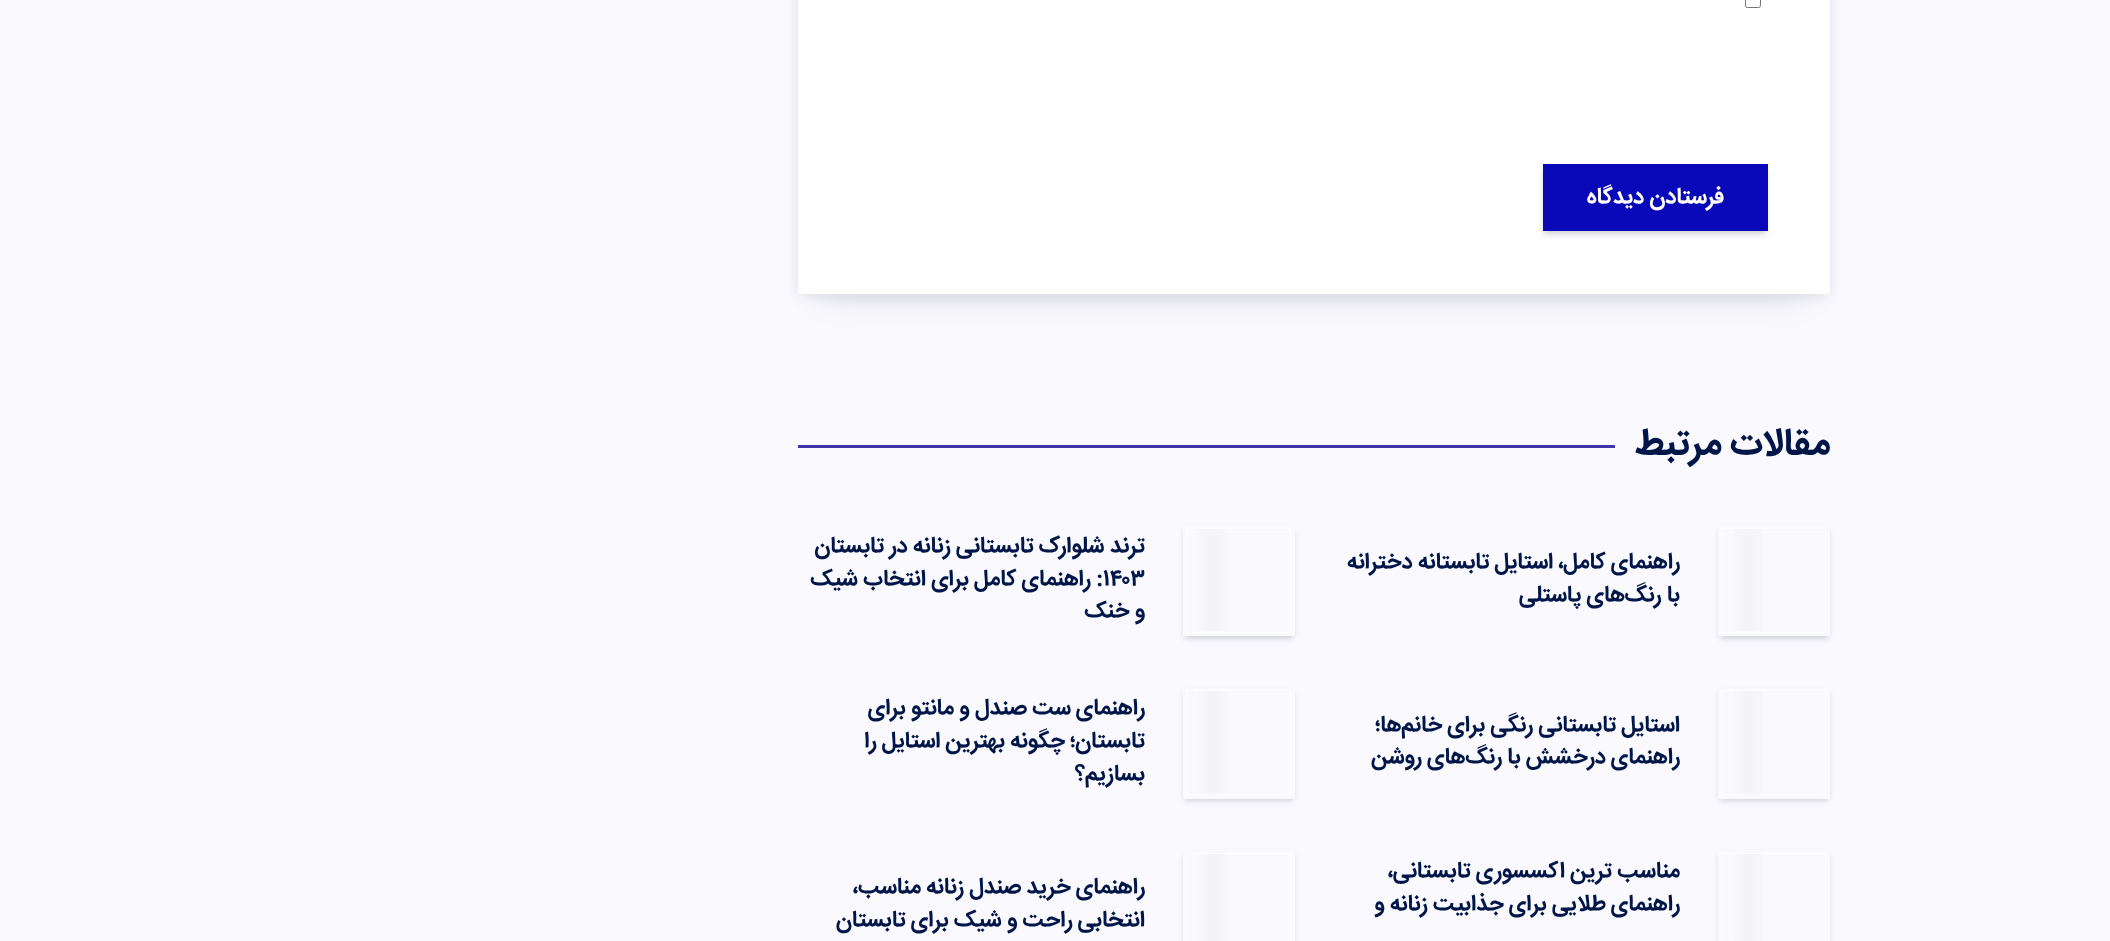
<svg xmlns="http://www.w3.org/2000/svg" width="2110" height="941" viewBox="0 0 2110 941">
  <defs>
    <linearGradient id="g1" gradientUnits="userSpaceOnUse" x1="1723" y1="580" x2="1774" y2="580"><stop offset="0" stop-color="#f9f9fe"/><stop offset="0.5" stop-color="#f3f3f8"/><stop offset="1" stop-color="#f9f9fe"/></linearGradient>
    <linearGradient id="g2" gradientUnits="userSpaceOnUse" x1="1188" y1="580" x2="1239" y2="580"><stop offset="0" stop-color="#f9f9fe"/><stop offset="0.5" stop-color="#f3f3f8"/><stop offset="1" stop-color="#f9f9fe"/></linearGradient>
    <linearGradient id="g3" gradientUnits="userSpaceOnUse" x1="1723" y1="743" x2="1774" y2="743"><stop offset="0" stop-color="#f9f9fe"/><stop offset="0.5" stop-color="#f3f3f8"/><stop offset="1" stop-color="#f9f9fe"/></linearGradient>
    <linearGradient id="g4" gradientUnits="userSpaceOnUse" x1="1188" y1="743" x2="1239" y2="743"><stop offset="0" stop-color="#f9f9fe"/><stop offset="0.5" stop-color="#f3f3f8"/><stop offset="1" stop-color="#f9f9fe"/></linearGradient>
    <linearGradient id="g5" gradientUnits="userSpaceOnUse" x1="1723" y1="905" x2="1774" y2="905"><stop offset="0" stop-color="#f9f9fe"/><stop offset="0.5" stop-color="#f3f3f8"/><stop offset="1" stop-color="#f9f9fe"/></linearGradient>
    <linearGradient id="g6" gradientUnits="userSpaceOnUse" x1="1188" y1="905" x2="1239" y2="905"><stop offset="0" stop-color="#f9f9fe"/><stop offset="0.5" stop-color="#f3f3f8"/><stop offset="1" stop-color="#f9f9fe"/></linearGradient>
  </defs>
  <rect width="100%" height="100%" fill="#f9f9fe"/>
  <path d="M823 -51h982v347H823z" fill="#070a191a" filter="blur(17px)"/>
  <path d="M799 -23h1030v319H799z" fill="#070a191a" filter="blur(7.5px)"/>
  <path d="M798 0h1032v294H798z" fill="#fff"/>
  <rect x="1745.5" y="-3.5" width="15" height="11" rx="2" fill="none" stroke="#767676"/>
  <path d="M1544 169h222v65H1544z" fill="#070a1933" filter="blur(3px)"/>
  <path d="M1543 164h225v67H1543z" fill="#0909ba"/>
  <path d="M798 445h817v3H798z" fill="#4034ad"/>
  <path d="M1720 530h108v108H1720z" fill="#070a1933" filter="blur(3px)"/>
  <path d="M1718 525h112v111H1718z" fill="#f9f9fe"/>
  <path d="M1734 529h29v102H1734z" fill="url(#g1)"/>
  <path d="M1721.5 528.5h104v104H1721.5z" fill="none" stroke="#fff"/>
  <path d="M1185 530h108v108H1185z" fill="#070a1933" filter="blur(3px)"/>
  <path d="M1183 525h112v111H1183z" fill="#f9f9fe"/>
  <path d="M1199 529h29v102H1199z" fill="url(#g2)"/>
  <path d="M1186.5 528.5h104v104H1186.5z" fill="none" stroke="#fff"/>
  <path d="M1720 693h108v107H1720z" fill="#070a1933" filter="blur(3px)"/>
  <path d="M1718 688h112v111H1718z" fill="#f9f9fe"/>
  <path d="M1734 691h29v103H1734z" fill="url(#g3)"/>
  <path d="M1721.5 690.5h104v104H1721.5z" fill="none" stroke="#fff"/>
  <path d="M1185 693h108v107H1185z" fill="#070a1933" filter="blur(3px)"/>
  <path d="M1183 688h112v111H1183z" fill="#f9f9fe"/>
  <path d="M1199 691h29v103H1199z" fill="url(#g4)"/>
  <path d="M1186.5 690.5h104v104H1186.5z" fill="none" stroke="#fff"/>
  <path d="M1720 855h108v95H1720z" fill="#070a1933" filter="blur(3px)"/>
  <path d="M1718 850h112v91H1718z" fill="#f9f9fe"/>
  <path d="M1734 854h29v87H1734z" fill="url(#g5)"/>
  <path d="M1721.5 853.5h104v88H1721.5z" fill="none" stroke="#fff"/>
  <path d="M1185 855h108v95H1185z" fill="#070a1933" filter="blur(3px)"/>
  <path d="M1183 850h112v91H1183z" fill="#f9f9fe"/>
  <path d="M1199 854h29v87H1199z" fill="url(#g6)"/>
  <path d="M1186.5 853.5h104v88H1186.5z" fill="none" stroke="#fff"/>
  <text x="1724" y="203" font-family="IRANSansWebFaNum" font-size="22.5" font-weight="bold" direction="rtl" fill="#fff">فرستادن دیدگاه</text>
  <text x="1830" y="454" font-family="IRANSansWebFaNum" font-size="37.5" font-weight="bold" direction="rtl" fill="#001649">مقالات مرتبط</text>
  <g font-family="IRANSansWebFaNum" font-size="22.5" font-weight="bold" direction="rtl" fill="#001649">
    <text x="1680" y="568">راهنمای کامل، استایل تابستانه دخترانه</text>
    <text x="1680" y="601">با رنگ‌های پاستلی</text>
    <text x="1145" y="552">ترند شلوارک تابستانی زنانه در تابستان</text>
  </g>
  <text x="1103" y="585" font-family="IRANSansWebFaNum" font-size="22.5" font-weight="bold" fill="#001649">۱۴۰۳</text>
  <g font-family="IRANSansWebFaNum" font-size="22.5" font-weight="bold" direction="rtl" fill="#001649">
    <text x="1103" y="585">: راهنمای کامل برای انتخاب شیک</text>
    <text x="1145" y="617">و خنک</text>
    <text x="1680" y="731">استایل تابستانی رنگی برای خانم‌ها؛</text>
    <text x="1680" y="763">راهنمای درخشش با رنگ‌های روشن</text>
    <text x="1145" y="714">راهنمای ست صندل و مانتو برای</text>
    <text x="1145" y="747">تابستان؛ چگونه بهترین استایل را</text>
    <text x="1145" y="780">بسازیم؟</text>
    <text x="1680" y="877">مناسب ترین اکسسوری‌ تابستانی،</text>
    <text x="1680" y="910">راهنمای طلایی برای جذابیت زنانه و</text>
    <text x="1145" y="893">راهنمای خرید صندل زنانه مناسب،</text>
    <text x="1145" y="926">انتخابی راحت و شیک برای تابستان</text>
  </g>
</svg>
